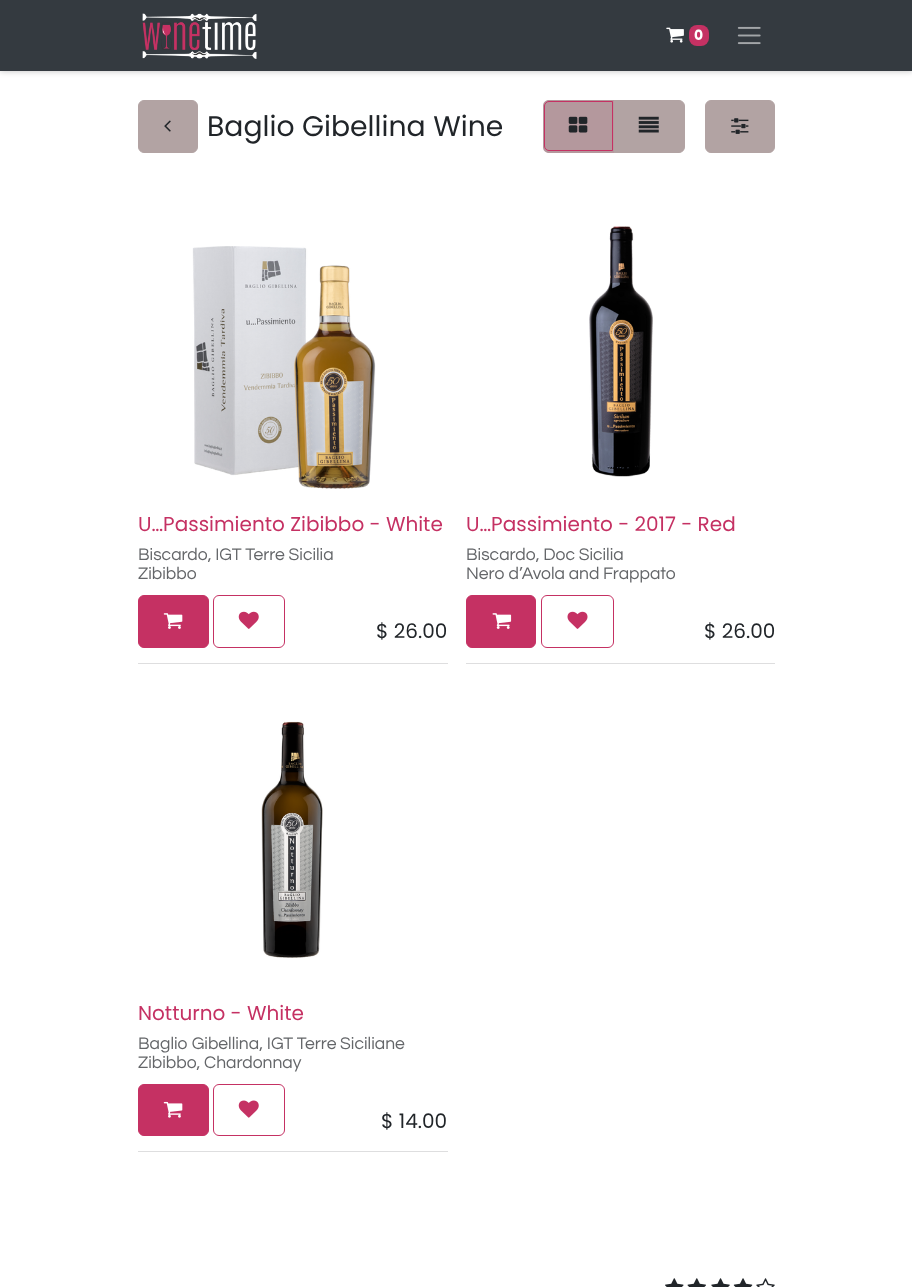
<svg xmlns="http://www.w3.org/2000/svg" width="912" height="1287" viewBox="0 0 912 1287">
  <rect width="100%" height="100%" fill="#fff"/>
  <path d="M0 0h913v71H0z" fill="#00000040" filter="blur(3px)"/>
  <path d="M0 0h912v71H0z" fill="#343a40"/>
  <image x="142" y="13" width="115" height="46" href="img/1.png"/>
  <image x="666" y="27" width="18" height="16" href="img/2.png"/>
  <rect x="689" y="25" width="20" height="21" rx="8" fill="#c53163"/>
  <image x="737" y="26" width="24" height="19" href="img/3.png"/>
  <rect x="138.5" y="100.5" width="59" height="52" rx="5.5" fill="#b2a3a3" stroke="#b2a3a3"/>
  <image x="164" y="120" width="7" height="12" href="img/4.png"/>
  <path d="M613.5 100.5H679C682 100.5 684.5 103 684.5 106V147C684.5 150 682 152.5 679 152.5H613.5Z" fill="#b2a3a3" stroke="#b2a3a3"/>
  <path d="M549 100H614V153H549C545.5 153 543 150.5 543 147V106C543 102.5 545.5 100 549 100Z" fill="#b4989d"/>
  <path d="M549 101.5H612.5V150.5H549C546.5 150.5 544.5 148.5 544.5 146V106C544.5 103.5 546.5 101.5 549 101.5Z" fill="none" stroke="#c53163"/>
  <image x="568" y="116" width="20" height="17" href="img/5.png"/>
  <image x="638" y="116" width="21" height="17" href="img/6.png"/>
  <rect x="705.5" y="100.5" width="69" height="52" rx="5.5" fill="#b2a3a3" stroke="#b2a3a3"/>
  <image x="731" y="118" width="18" height="16" href="img/7.png"/>
  <path d="M138 663h310v1H138z" fill="#dededf"/>
  <image x="192" y="246" width="184" height="243" href="img/8.png"/>
  <rect x="138.5" y="595.5" width="70" height="52" rx="5.5" fill="#c53163" stroke="#c53163"/>
  <image x="163" y="613" width="20" height="16" href="img/9.png"/>
  <rect x="213.5" y="595.5" width="71" height="52" rx="5.5" fill="none" stroke="#c53163"/>
  <image x="238" y="611" width="21" height="18" href="img/10.png"/>
  <path d="M466 663h309v1H466z" fill="#dededf"/>
  <image x="589" y="226" width="64" height="251" href="img/11.png"/>
  <rect x="466.5" y="595.5" width="69" height="52" rx="5.5" fill="#c53163" stroke="#c53163"/>
  <image x="492" y="613" width="20" height="16" href="img/12.png"/>
  <rect x="541.5" y="595.5" width="72" height="52" rx="5.5" fill="none" stroke="#c53163"/>
  <image x="567" y="611" width="21" height="18" href="img/13.png"/>
  <path d="M138 1151h310v1H138z" fill="#dededf"/>
  <image x="261" y="721" width="62" height="237" href="img/14.png"/>
  <rect x="138.5" y="1084.5" width="70" height="51" rx="5.5" fill="#c53163" stroke="#c53163"/>
  <image x="163" y="1101" width="20" height="17" href="img/15.png"/>
  <rect x="213.5" y="1084.5" width="71" height="51" rx="5.5" fill="none" stroke="#c53163"/>
  <image x="238" y="1100" width="21" height="18" href="img/16.png"/>
  <image x="665" y="1278" width="19" height="9" href="img/17.png"/>
  <image x="687" y="1278" width="19" height="9" href="img/18.png"/>
  <image x="711" y="1278" width="19" height="9" href="img/19.png"/>
  <image x="733" y="1278" width="20" height="9" href="img/20.png"/>
  <image x="756" y="1278" width="19" height="9" href="img/21.png"/>
  <text x="694" y="40" font-family="Poppins" font-size="14" font-weight="bold" fill="#fff">0</text>
  <text x="207" y="136" font-family="Poppins" font-size="28.25" fill="#212529">Baglio Gibellina Wine</text>
  <text x="138" y="531" font-family="Poppins" font-size="20" fill="#c53163">U…Passimiento Zibibbo - White</text>
  <g font-family="Questrial" font-size="17.5" fill="#646669">
    <text x="138" y="560">Biscardo, IGT Terre Sicilia</text>
    <text x="138" y="579">Zibibbo</text>
  </g>
  <text x="376" y="638" font-family="Poppins" font-size="20" fill="#212529">$ 26.00</text>
  <text x="466" y="531" font-family="Poppins" font-size="20" fill="#c53163">U…Passimiento - 2017 - Red</text>
  <g font-family="Questrial" font-size="17.5" fill="#646669">
    <text x="466" y="560">Biscardo, Doc Sicilia</text>
    <text x="466" y="579">Nero d’Avola and Frappato</text>
  </g>
  <text x="704" y="638" font-family="Poppins" font-size="20" fill="#212529">$ 26.00</text>
  <text x="138" y="1020" font-family="Poppins" font-size="20" fill="#c53163">Notturno - White</text>
  <g font-family="Questrial" font-size="17.5" fill="#646669">
    <text x="138" y="1049">Baglio Gibellina, IGT Terre Siciliane</text>
    <text x="138" y="1068">Zibibbo, Chardonnay</text>
  </g>
  <text x="381" y="1128" font-family="Poppins" font-size="20" fill="#212529">$ 14.00</text>
</svg>
